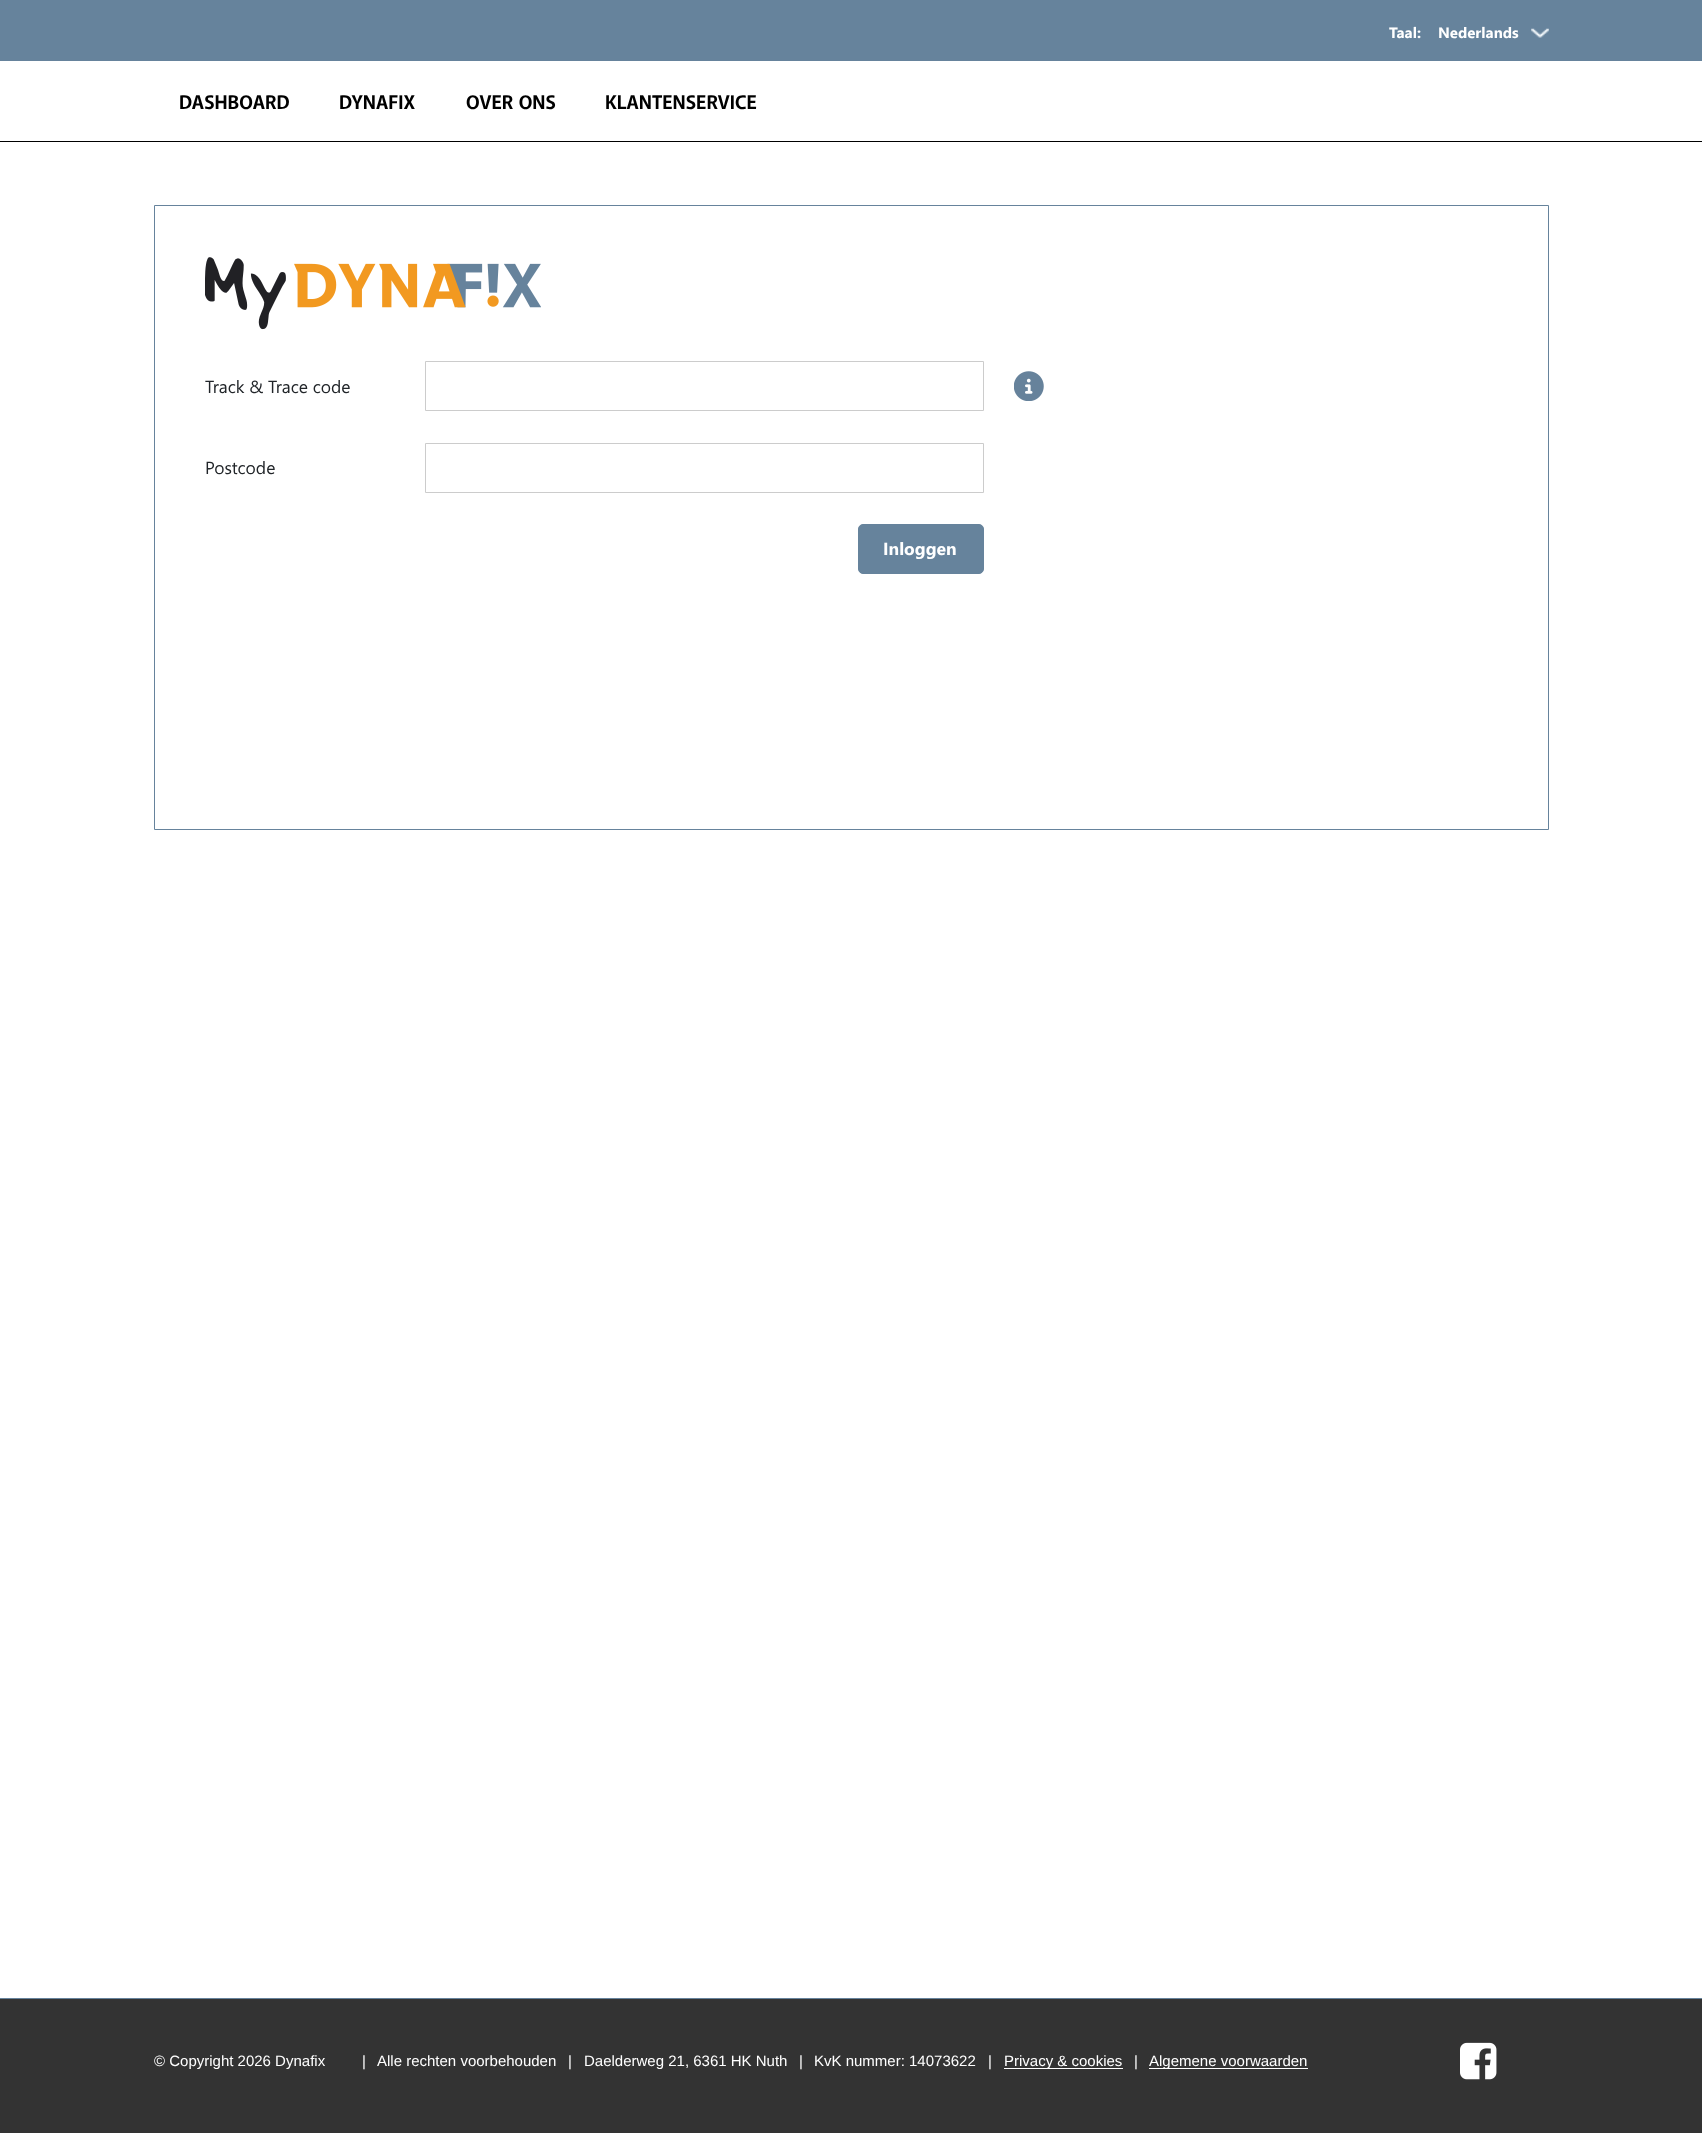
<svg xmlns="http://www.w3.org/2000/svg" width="1702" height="2133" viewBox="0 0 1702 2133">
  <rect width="100%" height="100%" fill="#fff"/>
  <path d="M0 0h1702v61H0z" fill="#66839c"/>
  <image x="1531" y="28" width="18" height="10" href="img/1.png"/>
  <path d="M0 141h1702v1H0z" fill="#000"/>
  <path d="M154.5 205.5h1394v624H154.5z" fill="none" stroke="#66839c"/>
  <image x="205" y="257" width="336" height="73" href="img/2.png"/>
  <path d="M425.5 361.5h558v49H425.5z" fill="none" stroke="#ccc"/>
  <image x="1014" y="371" width="30" height="30" href="img/3.png"/>
  <path d="M425.5 443.5h558v49H425.5z" fill="none" stroke="#ccc"/>
  <rect x="858.5" y="524.5" width="125" height="49" rx="4.5" fill="#66839c" stroke="#66839c"/>
  <path d="M0 1999h1702v134H0z" fill="#333"/>
  <path d="M0 1998h1702v1H0z" fill="#66839c"/>
  <path d="M1004 2068h119v1H1004z" fill="#fff"/>
  <path d="M1149 2068h159v1H1149z" fill="#fff"/>
  <image x="1460" y="2042" width="37" height="38" href="img/4.png"/>
  <g font-family="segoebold" font-size="15" font-weight="bold" fill="#fff">
    <text x="1389" y="38">Taal:</text>
    <text x="1438" y="38">Nederlands</text>
  </g>
  <g font-family="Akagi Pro" font-size="20" font-weight="bold" fill="#000">
    <text x="179" y="109">DASHBOARD</text>
    <text x="339" y="109">DYNAFIX</text>
    <text x="466" y="109">OVER ONS</text>
    <text x="605" y="109">KLANTENSERVICE</text>
  </g>
  <g font-family="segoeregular" font-size="17.5" fill="#212529">
    <text x="205" y="393">Track &amp; Trace code</text>
    <text x="205" y="474">Postcode</text>
  </g>
  <text x="883" y="555" font-family="segoebold" font-size="17.5" font-weight="bold" fill="#fff">Inloggen</text>
  <g font-family="Liberation Sans" font-size="15" fill="#fff">
    <text x="154" y="2066">© Copyright 2026 Dynafix</text>
    <text x="362" y="2066">|</text>
    <text x="377" y="2066">Alle rechten voorbehouden</text>
    <text x="568" y="2066">|</text>
    <text x="584" y="2066">Daelderweg 21, 6361 HK Nuth</text>
    <text x="799" y="2066">|</text>
    <text x="814" y="2066">KvK nummer: 14073622</text>
    <text x="988" y="2066">|</text>
    <text x="1004" y="2066">Privacy &amp; cookies</text>
    <text x="1134" y="2066">|</text>
    <text x="1149" y="2066">Algemene voorwaarden</text>
  </g>
</svg>
